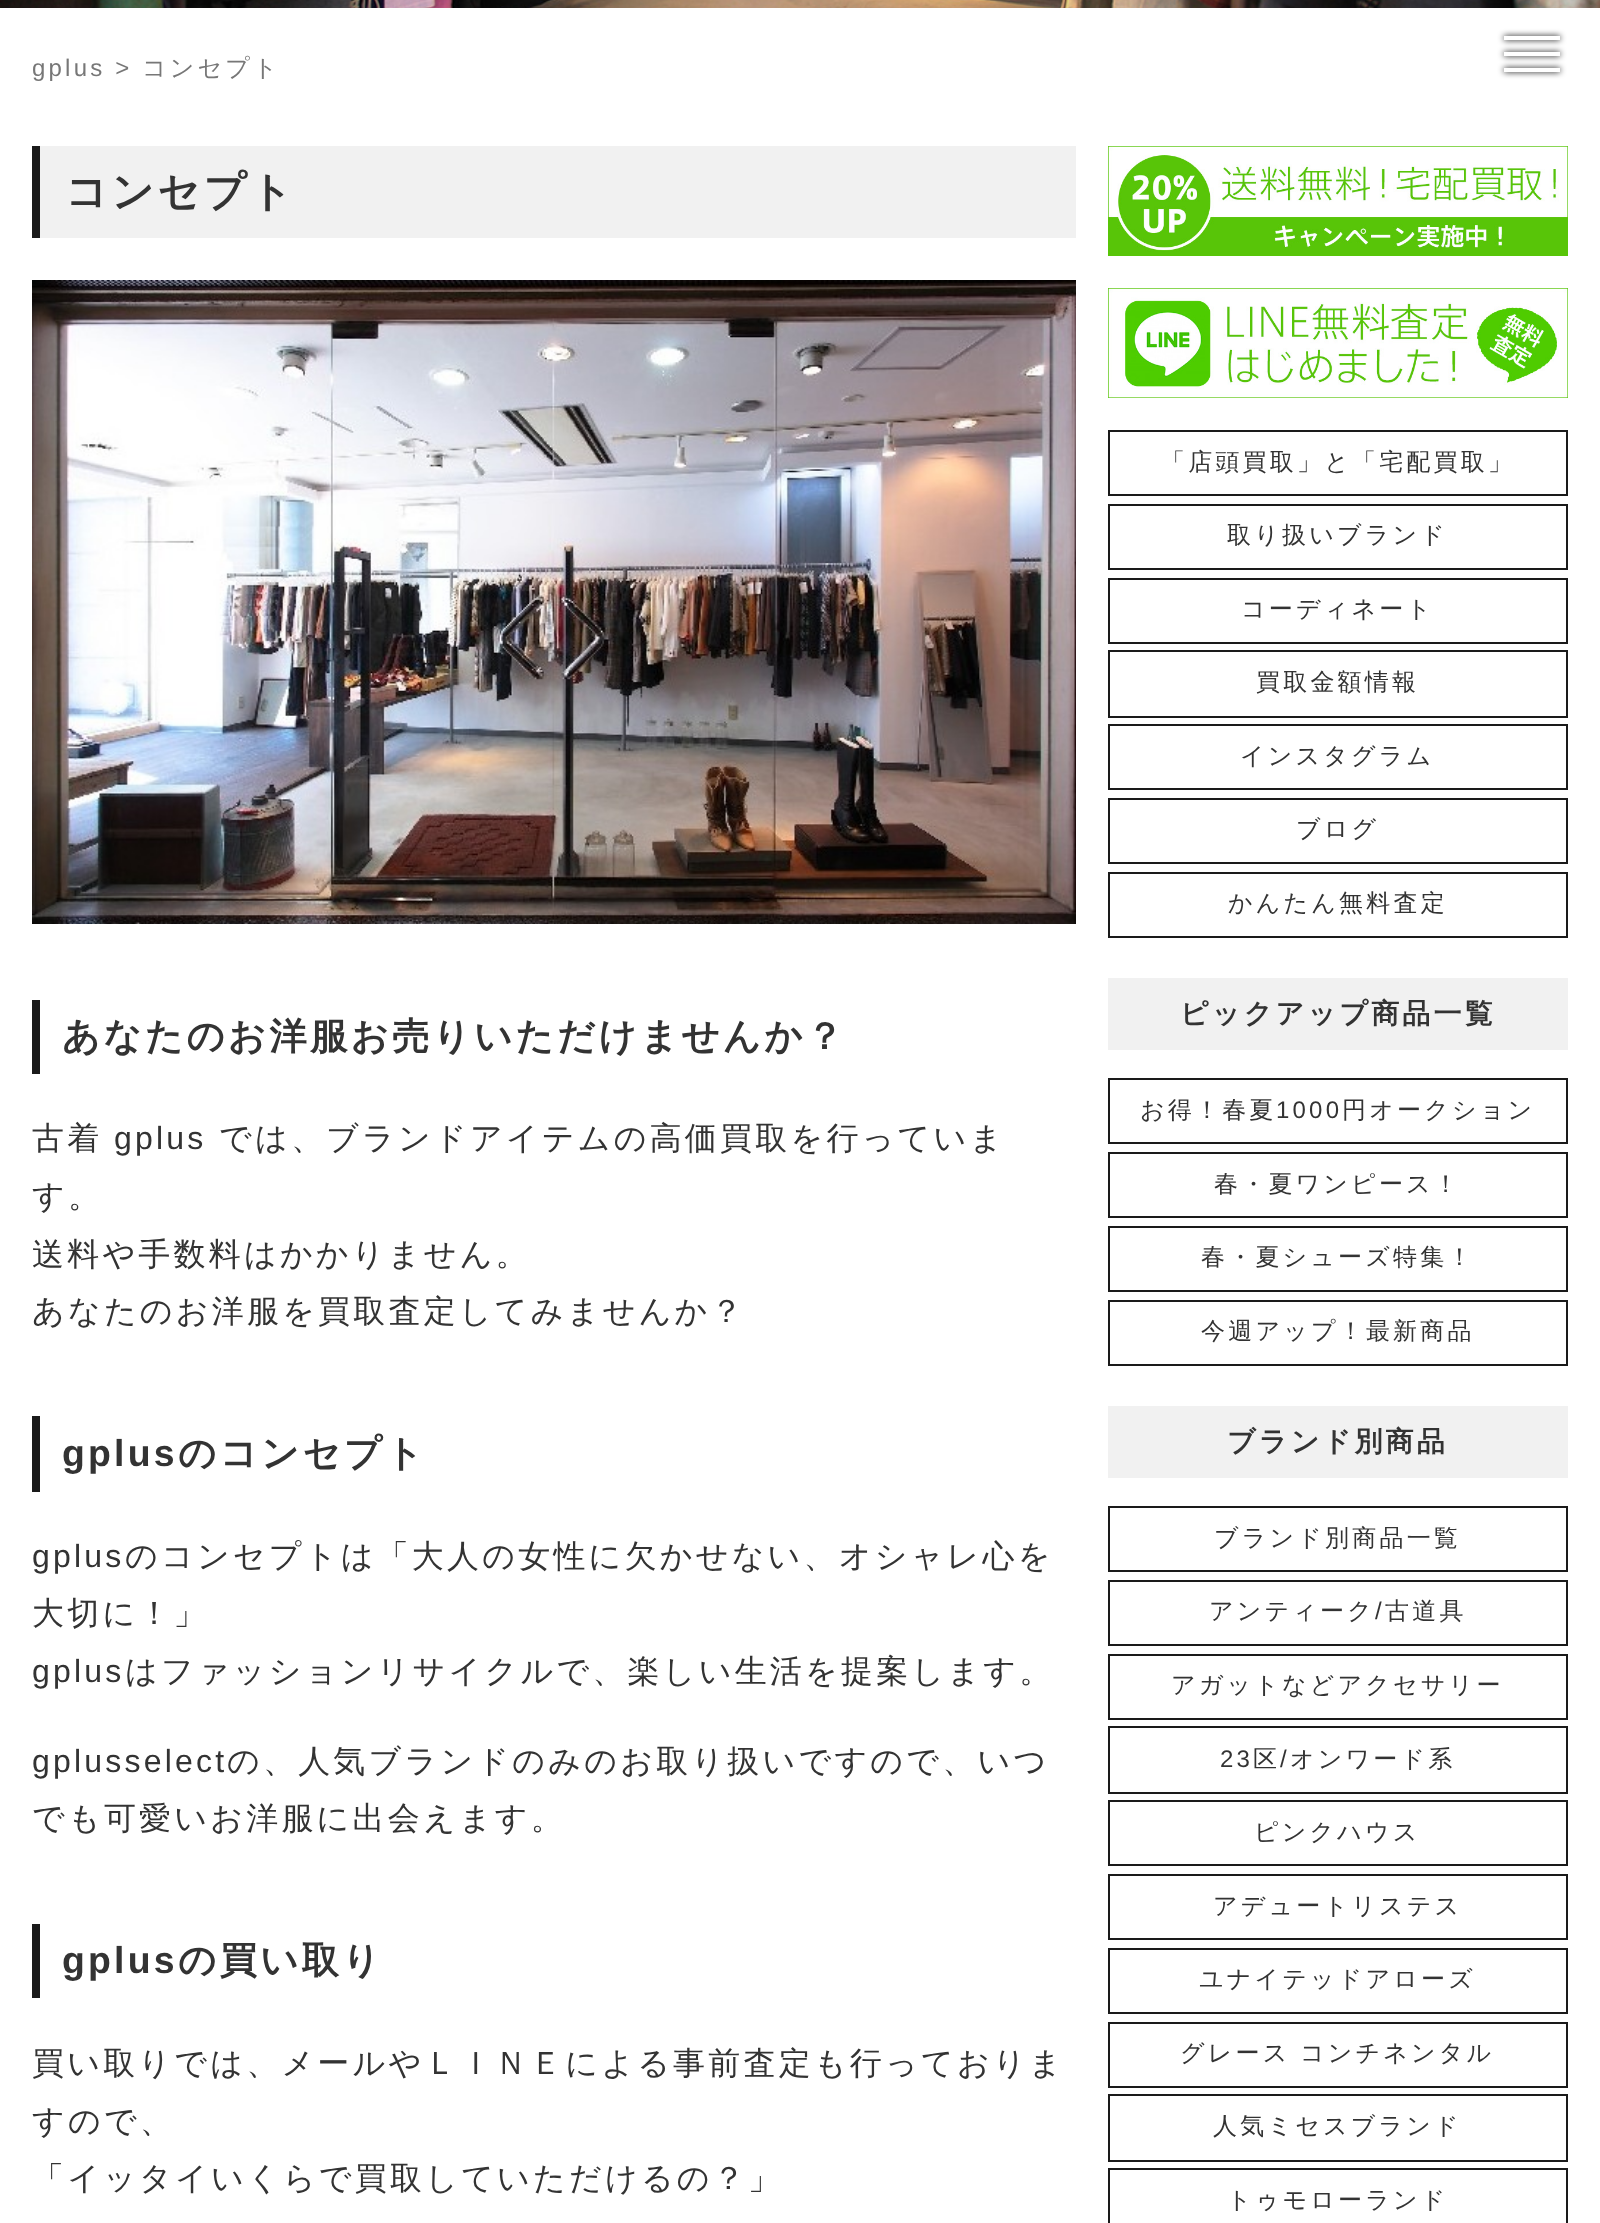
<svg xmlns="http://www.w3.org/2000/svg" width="1600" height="2223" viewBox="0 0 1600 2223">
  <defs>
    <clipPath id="clip1"><path d="M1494 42H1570V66H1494ZM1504 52H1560V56H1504Z" clip-rule="evenodd"/></clipPath>
    <clipPath id="clip2"><path d="M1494 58H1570V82H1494ZM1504 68H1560V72H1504Z" clip-rule="evenodd"/></clipPath>
  </defs>
  <rect width="100%" height="100%" fill="#fff"/>
  <image x="0" y="0" width="1600" height="8" href="img/1.png"/>
  <path d="M40 146h1036v92H40z" fill="#f1f1f1"/>
  <path d="M32 146h8v92H32z" fill="#1a1a1a"/>
  <image x="32" y="280" width="1044" height="644" href="img/2.png"/>
  <path d="M32 1000h8v74H32z" fill="#1a1a1a"/>
  <path d="M32 1416h8v76H32z" fill="#1a1a1a"/>
  <path d="M32 1924h8v74H32z" fill="#1a1a1a"/>
  <image x="1108" y="146" width="460" height="110" href="img/3.png"/>
  <image x="1108" y="288" width="460" height="110" href="img/4.png"/>
  <path d="M1109 431h458v64H1109z" fill="none" stroke="#1a1a1a" stroke-width="2"/>
  <path d="M1109 505h458v64H1109z" fill="none" stroke="#1a1a1a" stroke-width="2"/>
  <path d="M1109 579h458v64H1109z" fill="none" stroke="#1a1a1a" stroke-width="2"/>
  <path d="M1109 651h458v66H1109z" fill="none" stroke="#1a1a1a" stroke-width="2"/>
  <path d="M1109 725h458v64H1109z" fill="none" stroke="#1a1a1a" stroke-width="2"/>
  <path d="M1109 799h458v64H1109z" fill="none" stroke="#1a1a1a" stroke-width="2"/>
  <path d="M1109 873h458v64H1109z" fill="none" stroke="#1a1a1a" stroke-width="2"/>
  <path d="M1108 978h460v72H1108z" fill="#f1f1f1"/>
  <path d="M1109 1079h458v64H1109z" fill="none" stroke="#1a1a1a" stroke-width="2"/>
  <path d="M1109 1153h458v64H1109z" fill="none" stroke="#1a1a1a" stroke-width="2"/>
  <path d="M1109 1227h458v64H1109z" fill="none" stroke="#1a1a1a" stroke-width="2"/>
  <path d="M1109 1301h458v64H1109z" fill="none" stroke="#1a1a1a" stroke-width="2"/>
  <path d="M1108 1406h460v72H1108z" fill="#f1f1f1"/>
  <path d="M1109 1507h458v64H1109z" fill="none" stroke="#1a1a1a" stroke-width="2"/>
  <path d="M1109 1581h458v64H1109z" fill="none" stroke="#1a1a1a" stroke-width="2"/>
  <path d="M1109 1655h458v64H1109z" fill="none" stroke="#1a1a1a" stroke-width="2"/>
  <path d="M1109 1727h458v66H1109z" fill="none" stroke="#1a1a1a" stroke-width="2"/>
  <path d="M1109 1801h458v64H1109z" fill="none" stroke="#1a1a1a" stroke-width="2"/>
  <path d="M1109 1875h458v64H1109z" fill="none" stroke="#1a1a1a" stroke-width="2"/>
  <path d="M1109 1949h458v64H1109z" fill="none" stroke="#1a1a1a" stroke-width="2"/>
  <path d="M1109 2023h458v64H1109z" fill="none" stroke="#1a1a1a" stroke-width="2"/>
  <path d="M1109 2095h458v66H1109z" fill="none" stroke="#1a1a1a" stroke-width="2"/>
  <path d="M1109 2169h458v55H1109z" fill="none" stroke="#1a1a1a" stroke-width="2"/>
  <g clip-path="url(#clip1)">
    <path d="M1504 52h56v4H1504z" fill="#000" filter="blur(3px)"/>
  </g>
  <path d="M1504 36h56v4H1504z" fill="#000" filter="blur(3px)"/>
  <path d="M1504 36h56v4H1504z" fill="#fff"/>
  <g clip-path="url(#clip2)">
    <path d="M1504 68h56v4H1504z" fill="#000" filter="blur(3px)"/>
  </g>
  <text x="32" y="76" font-family="Liberation Sans" font-size="24" letter-spacing="3.2" fill="#777">gplus &gt;</text>
  <text x="142" y="76" font-family="WenQuanYi Zen Hei" font-size="24" font-weight="500" letter-spacing="3.2" fill="#777">コンセプト</text>
  <text x="65" y="206" font-family="WenQuanYi Zen Hei" font-size="42" font-weight="bold" letter-spacing="3.2" fill="#333">コンセプト</text>
  <text x="62" y="1049" font-family="WenQuanYi Zen Hei" font-size="37.4" font-weight="bold" letter-spacing="3.2" fill="#333">あなたのお洋服お売りいただけませんか？</text>
  <text x="32" y="1149" font-family="WenQuanYi Zen Hei" font-size="32" font-weight="500" letter-spacing="3.2" fill="#333">古着</text>
  <text x="114" y="1149" font-family="Liberation Sans" font-size="32" letter-spacing="3.2" fill="#333">gplus</text>
  <g font-family="WenQuanYi Zen Hei" font-size="32" font-weight="500" letter-spacing="3.2" fill="#333">
    <text x="219" y="1149">では、ブランドアイテムの高価買取を行っていま</text>
    <text x="32" y="1207">す。</text>
    <text x="32" y="1265">送料や手数料はかかりません。</text>
    <text x="32" y="1322">あなたのお洋服を買取査定してみませんか？</text>
  </g>
  <text x="62" y="1466" font-family="Liberation Sans" font-size="37.4" font-weight="bold" letter-spacing="3.2" fill="#333">gplus</text>
  <text x="178" y="1466" font-family="WenQuanYi Zen Hei" font-size="37.4" font-weight="bold" letter-spacing="3.2" fill="#333">のコンセプト</text>
  <text x="32" y="1567" font-family="Liberation Sans" font-size="32" letter-spacing="3.2" fill="#333">gplus</text>
  <g font-family="WenQuanYi Zen Hei" font-size="32" font-weight="500" letter-spacing="3.2" fill="#333">
    <text x="125" y="1567">のコンセプトは「大人の女性に欠かせない、オシャレ心を</text>
    <text x="32" y="1624">大切に！」</text>
  </g>
  <text x="32" y="1682" font-family="Liberation Sans" font-size="32" letter-spacing="3.2" fill="#333">gplus</text>
  <text x="125" y="1682" font-family="WenQuanYi Zen Hei" font-size="32" font-weight="500" letter-spacing="3.2" fill="#333">はファッションリサイクルで、楽しい生活を提案します。</text>
  <text x="32" y="1772" font-family="Liberation Sans" font-size="32" letter-spacing="3.2" fill="#333">gplusselect</text>
  <g font-family="WenQuanYi Zen Hei" font-size="32" font-weight="500" letter-spacing="3.2" fill="#333">
    <text x="227" y="1772">の、人気ブランドのみのお取り扱いですので、いつ</text>
    <text x="32" y="1829">でも可愛いお洋服に出会えます。</text>
  </g>
  <text x="62" y="1973" font-family="Liberation Sans" font-size="37.4" font-weight="bold" letter-spacing="3.2" fill="#333">gplus</text>
  <text x="178" y="1973" font-family="WenQuanYi Zen Hei" font-size="37.4" font-weight="bold" letter-spacing="3.2" fill="#333">の買い取り</text>
  <g font-family="WenQuanYi Zen Hei" font-size="32" font-weight="500" letter-spacing="3.2" fill="#333">
    <text x="32" y="2074">買い取りでは、メールやＬＩＮＥによる事前査定も行っておりま</text>
    <text x="32" y="2132">すので、</text>
    <text x="32" y="2189">「イッタイいくらで買取していただけるの？」</text>
  </g>
  <g font-family="WenQuanYi Zen Hei" font-size="24" font-weight="500" letter-spacing="3.2" fill="#333">
    <text x="1161" y="470">「店頭買取」と「宅配買取」</text>
    <text x="1227" y="543">取り扱いブランド</text>
    <text x="1241" y="617">コーディネート</text>
    <text x="1256" y="690">買取金額情報</text>
    <text x="1240" y="764">インスタグラム</text>
    <text x="1296" y="837">ブログ</text>
    <text x="1228" y="911">かんたん無料査定</text>
  </g>
  <text x="1180" y="1023" font-family="WenQuanYi Zen Hei" font-size="28" font-weight="bold" letter-spacing="3.2" fill="#333">ピックアップ商品一覧</text>
  <text x="1140" y="1118" font-family="WenQuanYi Zen Hei" font-size="24" font-weight="500" letter-spacing="3.2" fill="#333">お得！春夏</text>
  <text x="1276" y="1118" font-family="Liberation Sans" font-size="24" letter-spacing="3.2" fill="#333">1000</text>
  <g font-family="WenQuanYi Zen Hei" font-size="24" font-weight="500" letter-spacing="3.2" fill="#333">
    <text x="1342" y="1118">円オークション</text>
    <text x="1214" y="1192">春・夏ワンピース！</text>
    <text x="1201" y="1265">春・夏シューズ特集！</text>
    <text x="1201" y="1339">今週アップ！最新商品</text>
  </g>
  <text x="1227" y="1451" font-family="WenQuanYi Zen Hei" font-size="28" font-weight="bold" letter-spacing="3.2" fill="#333">ブランド別商品</text>
  <g font-family="WenQuanYi Zen Hei" font-size="24" font-weight="500" letter-spacing="3.2" fill="#333">
    <text x="1214" y="1546">ブランド別商品一覧</text>
    <text x="1209" y="1619">アンティーク</text>
  </g>
  <text x="1375" y="1619" font-family="Liberation Sans" font-size="24" letter-spacing="3.2" fill="#333">/</text>
  <g font-family="WenQuanYi Zen Hei" font-size="24" font-weight="500" letter-spacing="3.2" fill="#333">
    <text x="1385" y="1619">古道具</text>
    <text x="1171" y="1693">アガットなどアクセサリー</text>
  </g>
  <text x="1220" y="1767" font-family="Liberation Sans" font-size="24" letter-spacing="3.2" fill="#333">23</text>
  <text x="1253" y="1767" font-family="WenQuanYi Zen Hei" font-size="24" font-weight="500" letter-spacing="3.2" fill="#333">区</text>
  <text x="1280" y="1767" font-family="Liberation Sans" font-size="24" letter-spacing="3.2" fill="#333">/</text>
  <g font-family="WenQuanYi Zen Hei" font-size="24" font-weight="500" letter-spacing="3.2" fill="#333">
    <text x="1290" y="1767">オンワード系</text>
    <text x="1254" y="1840">ピンクハウス</text>
    <text x="1213" y="1914">アデュートリステス</text>
    <text x="1199" y="1987">ユナイテッドアローズ</text>
    <text x="1180" y="2061" word-spacing="-1">グレース コンチネンタル</text>
    <text x="1213" y="2134">人気ミセスブランド</text>
    <text x="1227" y="2208">トゥモローランド</text>
  </g>
</svg>
